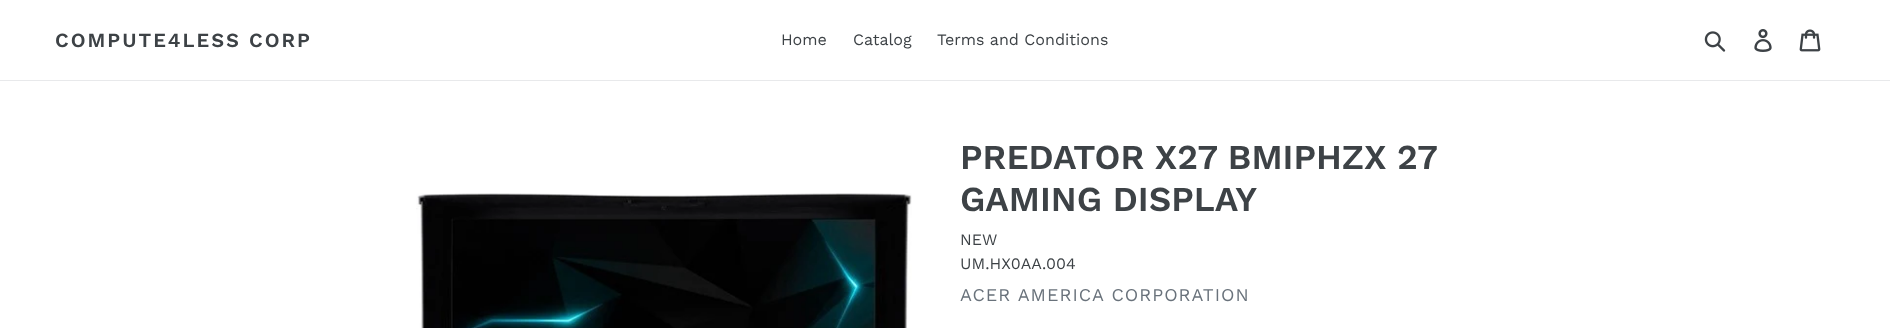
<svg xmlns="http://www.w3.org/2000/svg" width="1890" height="328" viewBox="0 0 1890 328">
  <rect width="100%" height="100%" fill="#fff"/>
  <path d="M0 80h1890v1H0z" fill="#e8e9eb"/>
  <image x="1704" y="31" width="22" height="21" href="img/1.png"/>
  <image x="1754" y="29" width="18" height="23" href="img/2.png"/>
  <image x="1799" y="29" width="22" height="23" href="img/3.png"/>
  <image x="416" y="193" width="496" height="135" href="img/4.png"/>
  <text x="55" y="47" font-family="Work Sans" font-size="20" font-weight="600" letter-spacing="2" fill="#3d4246">COMPUTE4LESS CORP</text>
  <g font-family="Work Sans" font-size="16" fill="#3d4246">
    <text x="781" y="45">Home</text>
    <text x="853" y="45">Catalog</text>
    <text x="937" y="45">Terms and Conditions</text>
  </g>
  <g font-family="Work Sans" font-size="35" font-weight="600" fill="#3d4246">
    <text x="960" y="169">PREDATOR X27 BMIPHZX 27</text>
    <text x="960" y="211">GAMING DISPLAY</text>
  </g>
  <g font-family="Work Sans" font-size="16" fill="#3d4246">
    <text x="960" y="245">NEW</text>
    <text x="960" y="269">UM.HX0AA.004</text>
  </g>
  <text x="960" y="301" font-family="Work Sans" font-size="18" letter-spacing="1" fill="#69727b">ACER AMERICA CORPORATION</text>
</svg>
